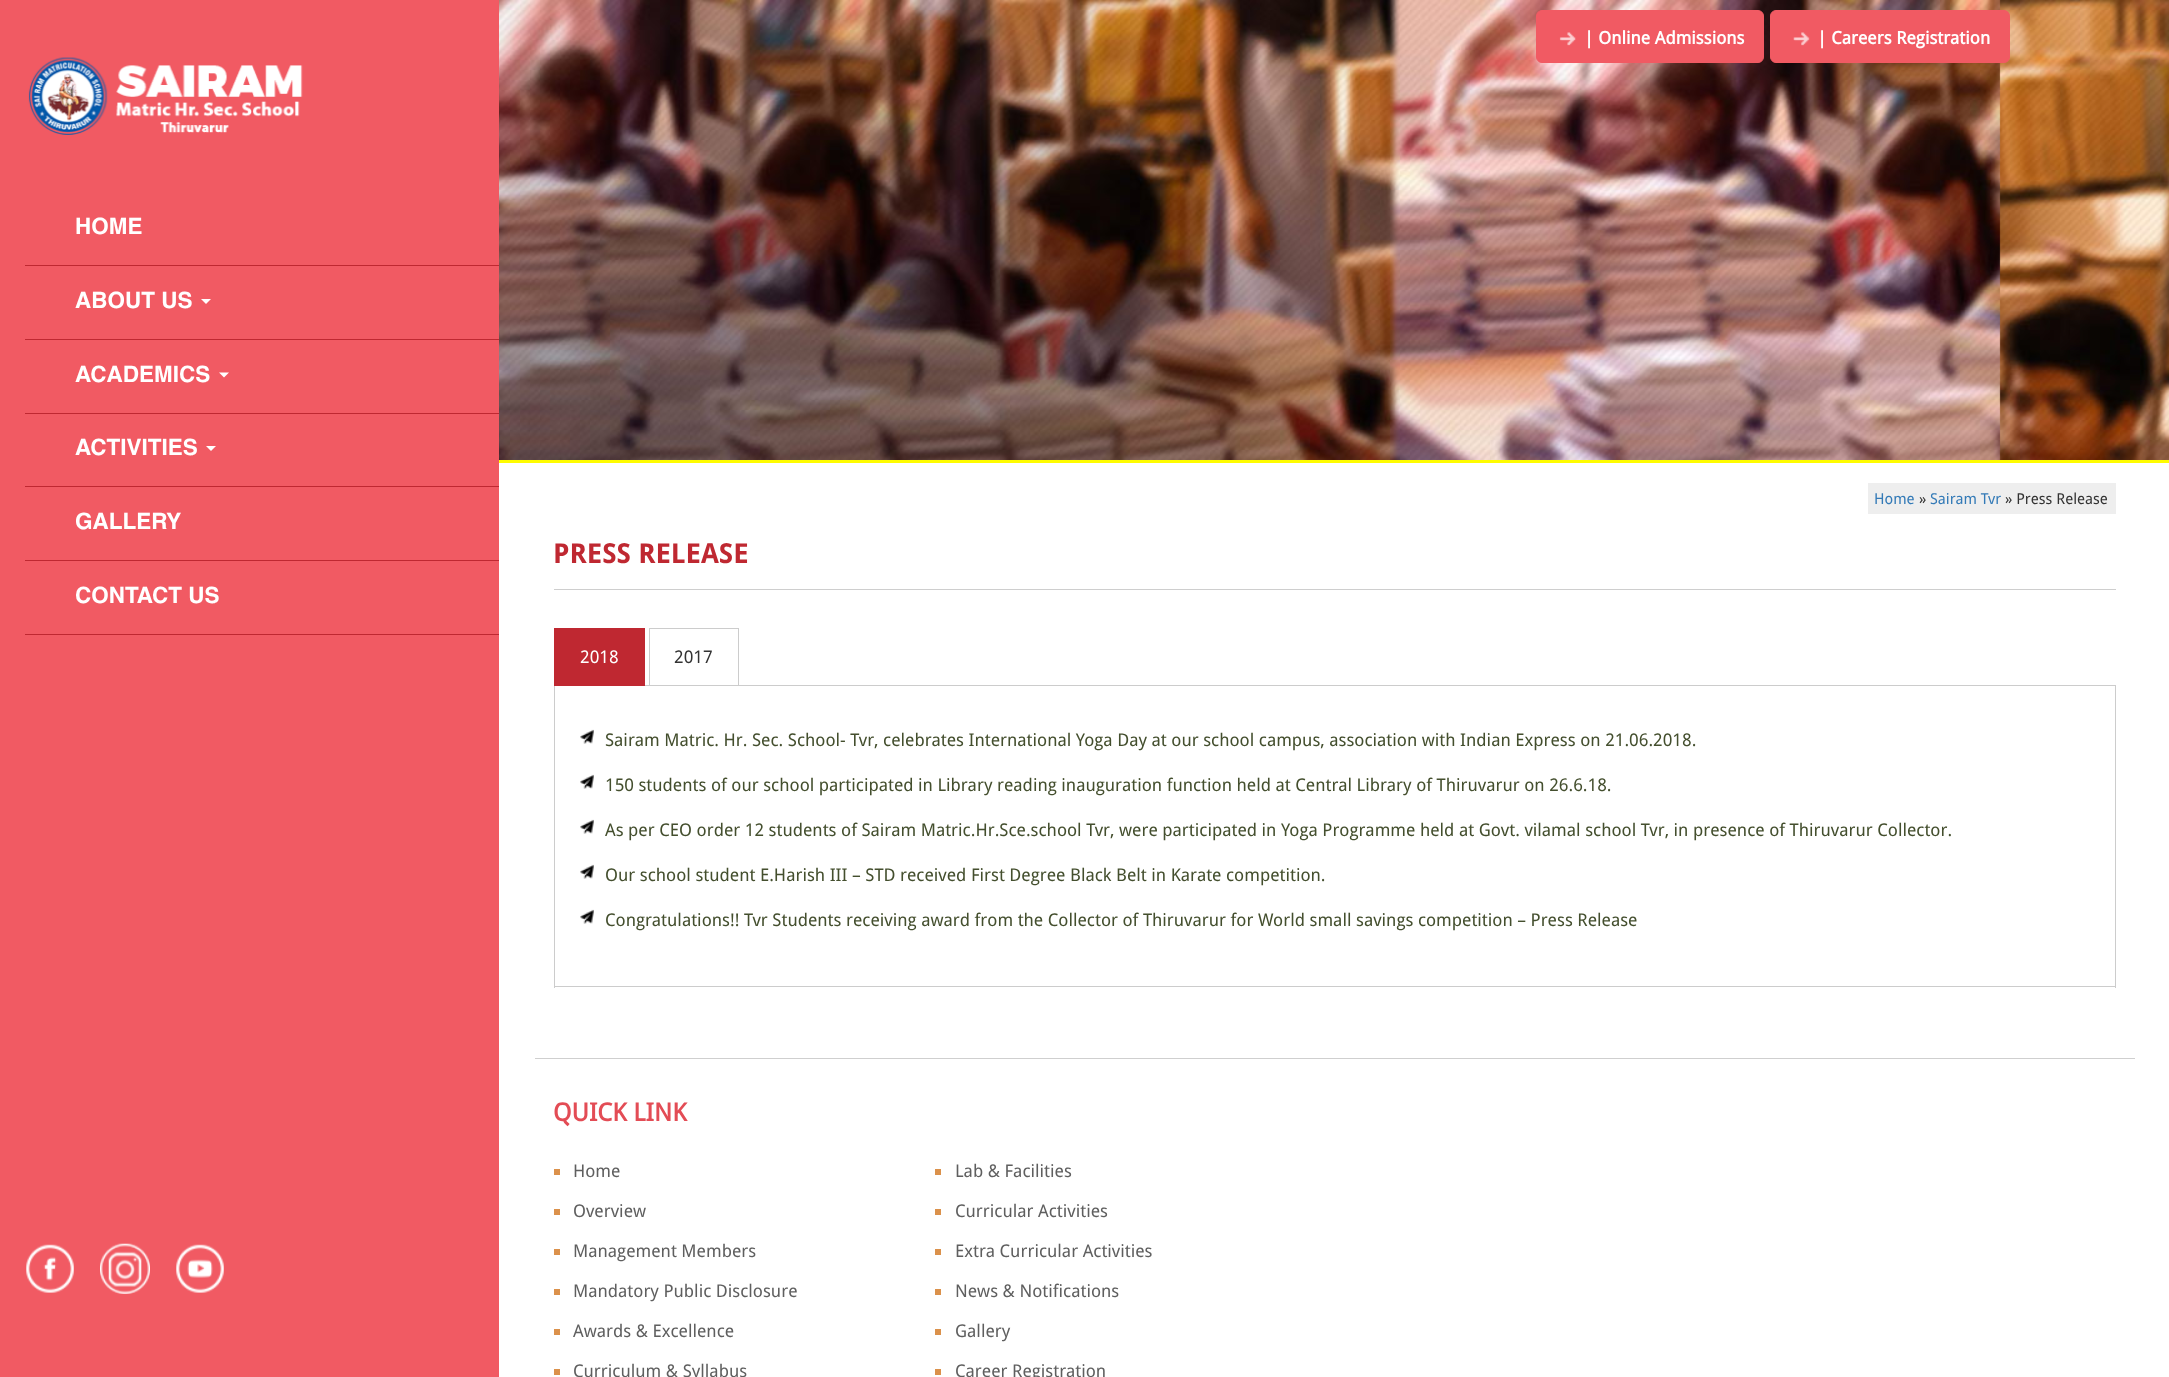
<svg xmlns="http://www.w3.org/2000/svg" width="2169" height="1377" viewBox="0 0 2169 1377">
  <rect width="100%" height="100%" fill="#fff"/>
  <image x="499" y="0" width="1670" height="460" href="img/1.png"/>
  <path d="M499 460h1670v3H499z" fill="#fffc00"/>
  <rect x="1536.5" y="10.5" width="227" height="52" rx="5.5" fill="#f15a63" stroke="#f15a63"/>
  <image x="1559" y="32" width="17" height="14" href="img/2.png"/>
  <rect x="1770.5" y="10.5" width="239" height="52" rx="5.5" fill="#f15a63" stroke="#f15a63"/>
  <image x="1793" y="32" width="17" height="14" href="img/3.png"/>
  <path d="M0 0h499v1377H0z" fill="#f15a63"/>
  <image x="28" y="57" width="275" height="78" href="img/4.png"/>
  <path d="M25 265h474v1H25z" fill="#bf2831"/>
  <path d="M25 339h474v1H25z" fill="#bf2831"/>
  <path d="M201 299H211L206 304Z" fill="#fff"/>
  <path d="M25 413h474v1H25z" fill="#bf2831"/>
  <path d="M219 372.5H229L224 377.5Z" fill="#fff"/>
  <path d="M25 486h474v1H25z" fill="#bf2831"/>
  <path d="M206 446H216L211 451Z" fill="#fff"/>
  <path d="M25 560h474v1H25z" fill="#bf2831"/>
  <path d="M25 634h474v1H25z" fill="#bf2831"/>
  <image x="26" y="1244" width="48" height="49" href="img/5.png"/>
  <image x="100" y="1243" width="50" height="51" href="img/6.png"/>
  <image x="176" y="1244" width="48" height="49" href="img/7.png"/>
  <path d="M535 1058h1600v1H535z" fill="#cfcfcf"/>
  <path d="M1868 483h248v31H1868z" fill="#eee"/>
  <path d="M554 589h1562v1H554z" fill="#cecece"/>
  <path d="M645 685h1471v1H645z" fill="#ccc"/>
  <path d="M555 629h89v57H555z" fill="#bf2831"/>
  <path d="M554 628h91v1H554z" fill="#bf2831"/>
  <path d="M644 628h1v58H644z" fill="#bf2831"/>
  <path d="M554 628h1v58H554z" fill="#bf2831"/>
  <path d="M649 628h90v1H649z" fill="#ccc"/>
  <path d="M738 628h1v58H738z" fill="#ccc"/>
  <path d="M649 628h1v58H649z" fill="#ccc"/>
  <path d="M2115 686h1v302H2115z" fill="#ccc"/>
  <path d="M554 986h1562v1H554z" fill="#ccc"/>
  <path d="M554 686h1v302H554z" fill="#ccc"/>
  <image x="580" y="729" width="14" height="15" href="img/8.png"/>
  <image x="580" y="774" width="14" height="15" href="img/9.png"/>
  <image x="580" y="819" width="14" height="15" href="img/8.png"/>
  <image x="580" y="864" width="14" height="15" href="img/8.png"/>
  <image x="580" y="909" width="14" height="15" href="img/8.png"/>
  <path d="M554 1169h6v6H554z" fill="#db914b"/>
  <path d="M935 1169h6v6H935z" fill="#db914b"/>
  <path d="M554 1209h6v6H554z" fill="#db914b"/>
  <path d="M935 1209h6v6H935z" fill="#db914b"/>
  <path d="M554 1249h6v6H554z" fill="#db914b"/>
  <path d="M935 1249h6v6H935z" fill="#db914b"/>
  <path d="M554 1289h6v6H554z" fill="#db914b"/>
  <path d="M935 1289h6v6H935z" fill="#db914b"/>
  <path d="M554 1329h6v6H554z" fill="#db914b"/>
  <path d="M935 1329h6v6H935z" fill="#db914b"/>
  <path d="M554 1369h6v6H554z" fill="#db914b"/>
  <path d="M935 1369h6v6H935z" fill="#db914b"/>
  <g font-family="'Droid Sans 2'" font-size="17.5" font-weight="bold" fill="#fff">
    <text x="1584" y="44">| Online Admissions</text>
    <text x="1817" y="44">| Careers Registration</text>
  </g>
  <g font-family="Helvetica" font-size="22.5" font-weight="bold" fill="#fff">
    <text x="75" y="234">HOME</text>
    <text x="75" y="308">ABOUT US</text>
    <text x="75" y="382">ACADEMICS</text>
    <text x="75" y="455">ACTIVITIES</text>
    <text x="75" y="529">GALLERY</text>
    <text x="75" y="603">CONTACT US</text>
  </g>
  <text x="1874" y="504" font-family="Droid Sans" font-size="15" fill="#337ab7">Home</text>
  <text x="1919" y="504" font-family="Droid Sans" font-size="15" fill="#333">»</text>
  <text x="1930" y="504" font-family="Droid Sans" font-size="15" fill="#337ab7">Sairam Tvr</text>
  <text x="2005" y="504" font-family="Droid Sans" font-size="15" fill="#333">» Press Release</text>
  <text x="553" y="563" font-family="Droid Sans" font-size="27.5" font-weight="bold" fill="#bf2831">PRESS RELEASE</text>
  <text x="580" y="663" font-family="Droid Sans" font-size="17.5" fill="#fff">2018</text>
  <text x="674" y="663" font-family="Droid Sans" font-size="17.5" fill="#333">2017</text>
  <g font-family="Droid Sans" font-size="17.5" fill="#444f2e">
    <text x="605" y="746">Sairam Matric. Hr. Sec. School- Tvr, celebrates International Yoga Day at our school campus, association with Indian Express on 21.06.2018.</text>
    <text x="605" y="791">150 students of our school participated in Library reading inauguration function held at Central Library of Thiruvarur on 26.6.18.</text>
    <text x="605" y="836">As per CEO order 12 students of Sairam Matric.Hr.Sce.school Tvr, were participated in Yoga Programme held at Govt. vilamal school Tvr, in presence of Thiruvarur Collector.</text>
    <text x="605" y="881">Our school student E.Harish III – STD received First Degree Black Belt in Karate competition.</text>
    <text x="605" y="926">Congratulations!! Tvr Students receiving award from the Collector of Thiruvarur for World small savings competition – Press Release</text>
  </g>
  <text x="553" y="1121" font-family="'Droid Sans 2'" font-size="25" font-weight="bold" fill="#e34c55">QUICK LINK</text>
  <g font-family="Droid Sans" font-size="17.5" fill="#5f5f5f">
    <text x="573" y="1177">Home</text>
    <text x="955" y="1177">Lab &amp; Facilities</text>
    <text x="573" y="1217">Overview</text>
    <text x="955" y="1217">Curricular Activities</text>
    <text x="573" y="1257">Management Members</text>
    <text x="955" y="1257">Extra Curricular Activities</text>
    <text x="573" y="1297">Mandatory Public Disclosure</text>
    <text x="955" y="1297">News &amp; Notifications</text>
    <text x="573" y="1337">Awards &amp; Excellence</text>
    <text x="955" y="1337">Gallery</text>
    <text x="573" y="1377">Curriculum &amp; Syllabus</text>
    <text x="955" y="1377">Career Registration</text>
  </g>
</svg>
